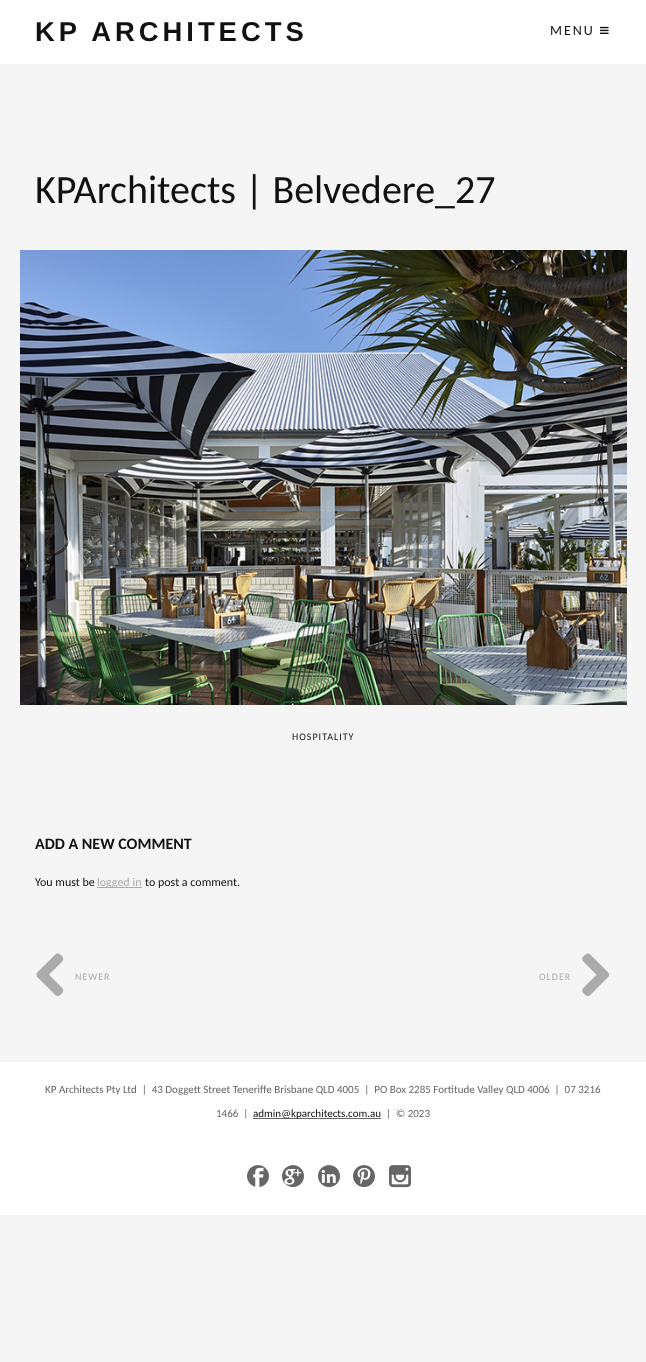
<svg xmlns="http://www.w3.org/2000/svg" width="646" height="1362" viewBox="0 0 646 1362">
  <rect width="100%" height="100%" fill="#f5f5f5"/>
  <path d="M0 0h646v64H0z" fill="#fff"/>
  <image x="600" y="26" width="9" height="8" href="img/1.png"/>
  <image x="20" y="250" width="607" height="455" href="img/2.png"/>
  <path d="M97 887h45v1H97z" fill="#ababab"/>
  <image x="36" y="953" width="28" height="43" href="img/3.png"/>
  <image x="582" y="953" width="27" height="43" href="img/4.png"/>
  <path d="M0 1062h646v153H0z" fill="#fff"/>
  <path d="M253 1118h128v1H253z" fill="#666"/>
  <image x="247" y="1165" width="22" height="22" href="img/5.png"/>
  <image x="282" y="1165" width="22" height="23" href="img/6.png"/>
  <image x="318" y="1165" width="22" height="23" href="img/7.png"/>
  <image x="353" y="1165" width="22" height="23" href="img/8.png"/>
  <image x="389" y="1165" width="22" height="23" href="img/9.png"/>
  <text x="35" y="41" font-family="Liberation Sans" font-size="27.4" font-weight="bold" letter-spacing="4" fill="#111">KP ARCHITECTS</text>
  <text x="550" y="35" font-family="Carlito" font-size="14" letter-spacing="2" fill="#111">MENU</text>
  <text x="35" y="203" font-family="Carlito" font-size="40" fill="#111">KPArchitects | Belvedere_27</text>
  <text x="292" y="740" font-family="Carlito" font-size="10" letter-spacing="1" fill="#111">HOSPITALITY</text>
  <text x="35" y="849" font-family="Carlito" font-size="16" font-weight="bold" fill="#111">ADD A NEW COMMENT</text>
  <text x="35" y="886" font-family="Carlito" font-size="12" fill="#111">You must be</text>
  <text x="97" y="886" font-family="Carlito" font-size="12" fill="#ababab">logged in</text>
  <text x="145" y="886" font-family="Carlito" font-size="12" fill="#111">to post a comment.</text>
  <g font-family="Carlito" font-size="10" letter-spacing="1" fill="#ababab">
    <text x="75" y="980">NEWER</text>
    <text x="539" y="980">OLDER</text>
  </g>
  <g font-family="Carlito" font-size="11" fill="#666">
    <text x="45" y="1093" xml:space="preserve">KP Architects Pty Ltd  |  43 Doggett Street Teneriffe Brisbane QLD 4005  |  PO Box 2285 Fortitude Valley QLD 4006  |  07 3216</text>
    <text x="216" y="1117" xml:space="preserve">1466  |</text>
  </g>
  <text x="253" y="1117" font-family="Carlito" font-size="11" fill="#111">admin@kparchitects.com.au</text>
  <text x="386" y="1117" font-family="Carlito" font-size="11" fill="#666" xml:space="preserve">|  © 2023</text>
</svg>
